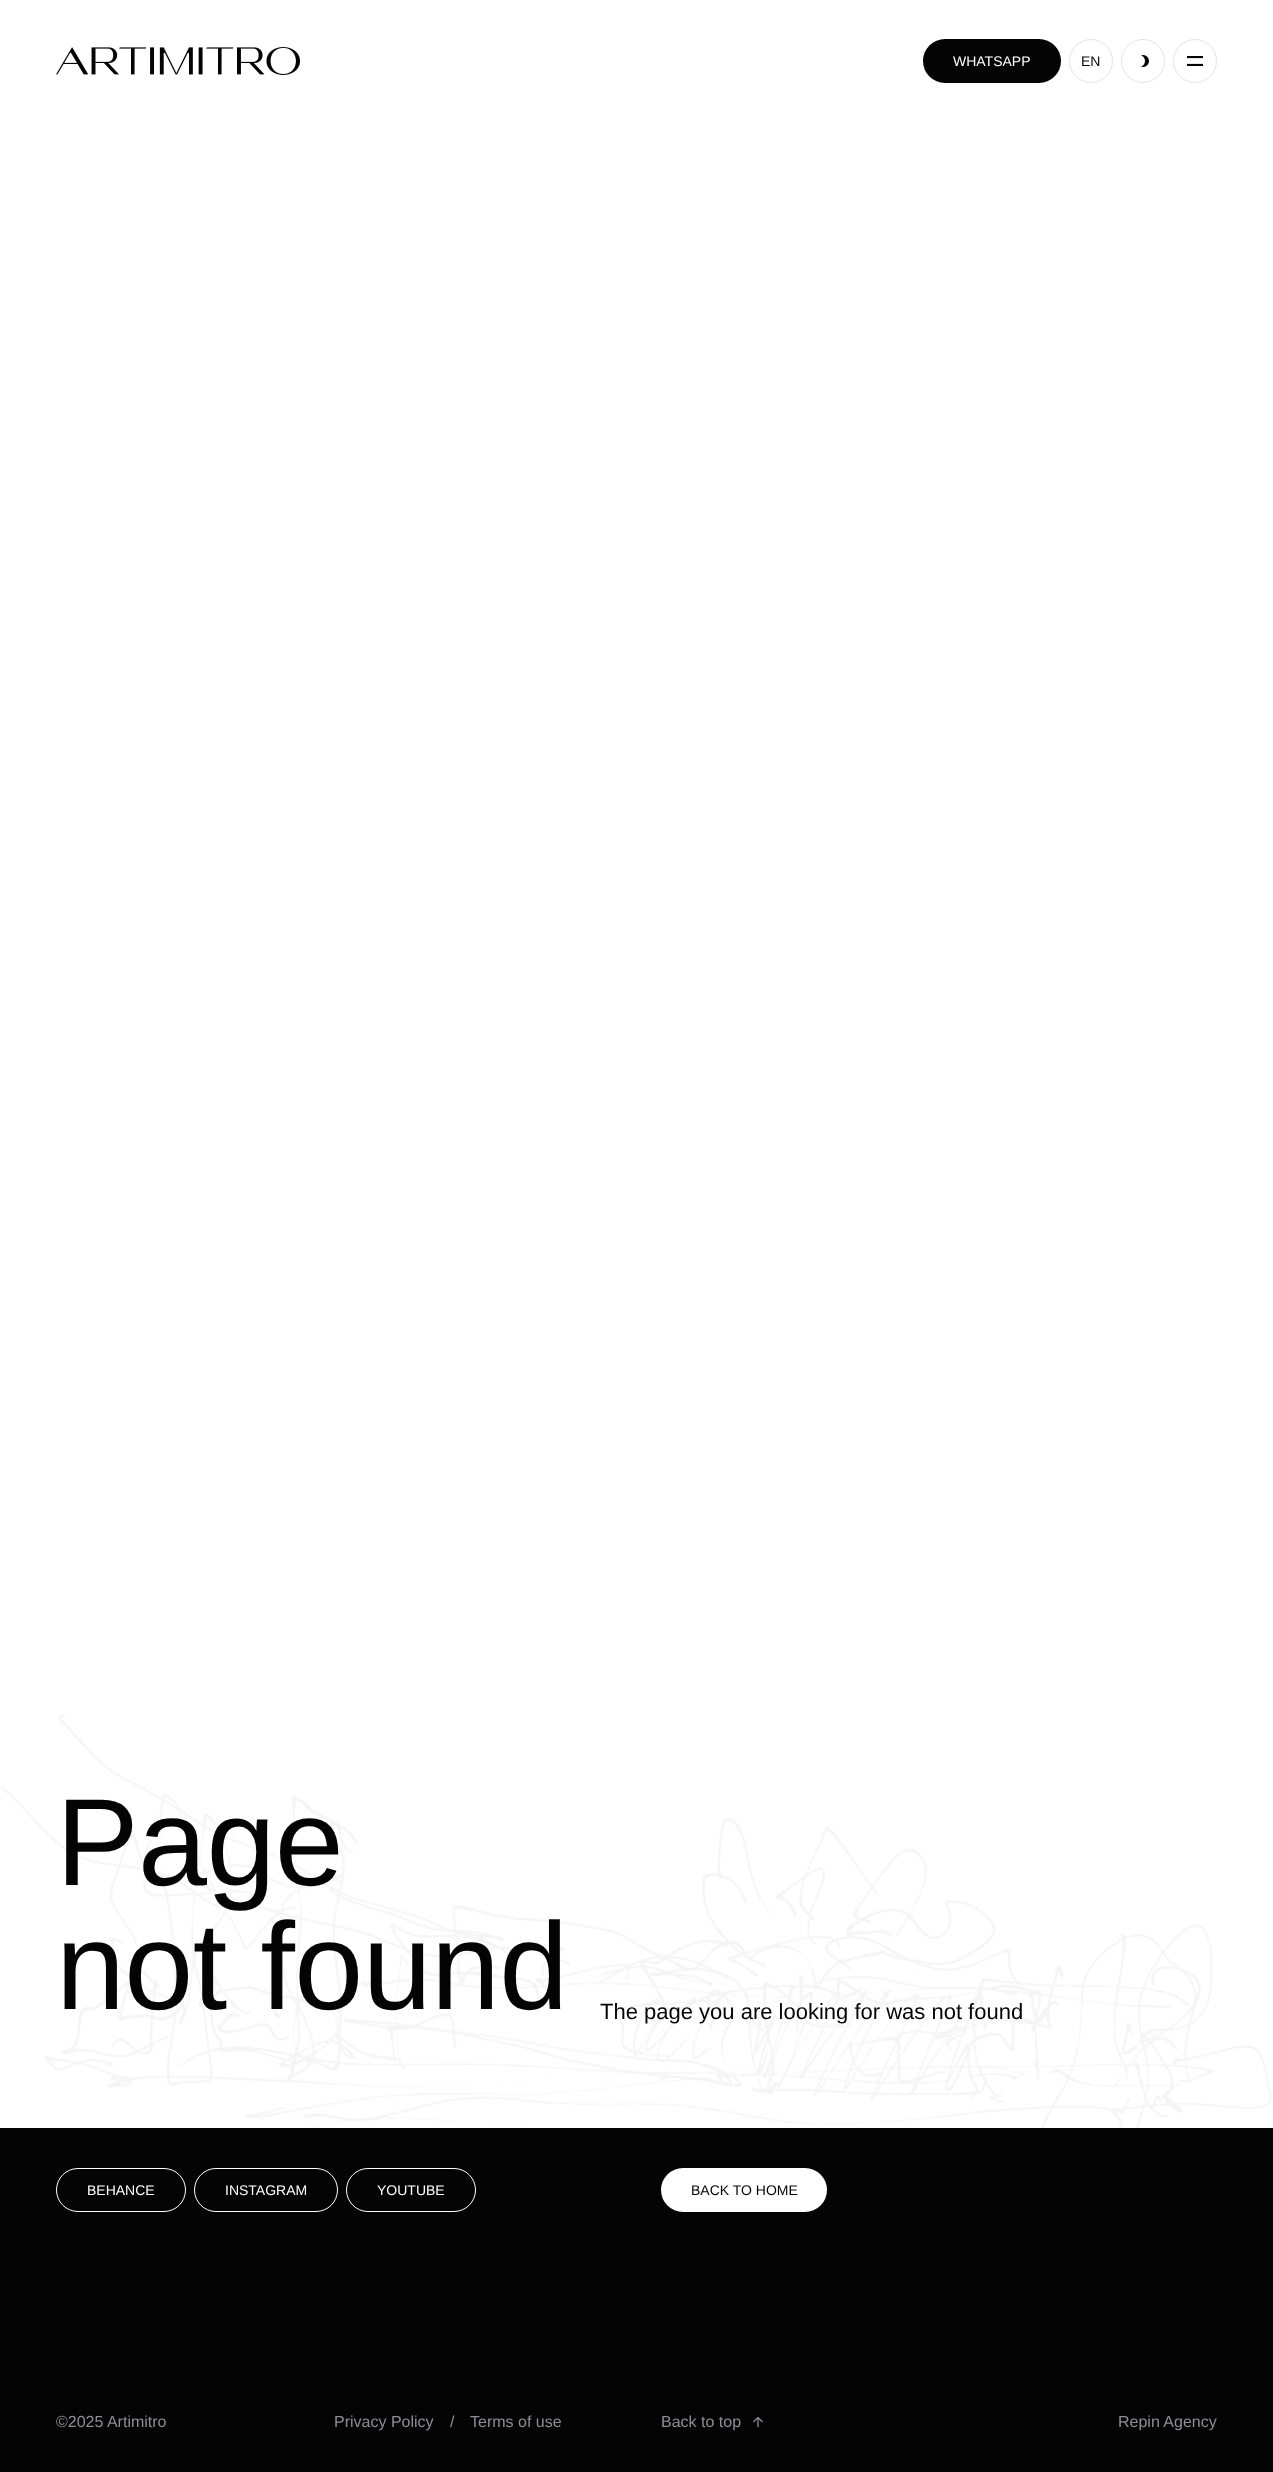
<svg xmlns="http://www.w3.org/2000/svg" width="1273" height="2472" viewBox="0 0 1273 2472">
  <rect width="100%" height="100%" fill="#fff"/>
  <image x="56" y="47" width="244" height="28" href="img/1.png"/>
  <rect x="923" y="39" width="138" height="44" rx="22" fill="#040404"/>
  <circle cx="1091" cy="61" r="21.5" fill="none" stroke="#e4e4e5"/>
  <circle cx="1143" cy="61" r="21.5" fill="none" stroke="#e4e4e5"/>
  <image x="1141" y="55" width="8" height="12" href="img/2.png"/>
  <circle cx="1195" cy="61" r="21.5" fill="none" stroke="#e4e4e5"/>
  <image x="1187" y="56" width="16" height="10" href="img/3.png"/>
  <image x="0" y="1715" width="1272" height="413" href="img/4.png"/>
  <path d="M0 2128h1273v344H0z" fill="#040404"/>
  <rect x="56.5" y="2168.5" width="129" height="43" rx="21.5" fill="none" stroke="#fff"/>
  <rect x="194.5" y="2168.5" width="143" height="43" rx="21.5" fill="none" stroke="#fff"/>
  <rect x="346.5" y="2168.5" width="129" height="43" rx="21.5" fill="none" stroke="#fff"/>
  <rect x="661" y="2168" width="166" height="44" rx="22" fill="#fff"/>
  <image x="753" y="2417" width="10" height="10" href="img/5.png"/>
  <text x="953" y="66" font-family="Liberation Sans" font-size="14" fill="#fff">WHATSAPP</text>
  <text x="1081" y="66" font-family="Liberation Sans" font-size="14" fill="#040404">EN</text>
  <g font-family="Liberation Sans" font-size="124" letter-spacing="-0.6" fill="#040404">
    <text x="56" y="1885">Page</text>
    <text x="56" y="2009">not found</text>
  </g>
  <text x="600" y="2019" font-family="Liberation Sans" font-size="22" fill="#040404">The page you are looking for was not found</text>
  <g font-family="Liberation Sans" font-size="14" fill="#fff">
    <text x="87" y="2195">BEHANCE</text>
    <text x="225" y="2195">INSTAGRAM</text>
    <text x="377" y="2195">YOUTUBE</text>
  </g>
  <text x="691" y="2195" font-family="Liberation Sans" font-size="14" fill="#040404">BACK TO HOME</text>
  <g font-family="Liberation Sans" font-size="16" fill="#8d8d98">
    <text x="56" y="2427">©2025 Artimitro</text>
    <text x="334" y="2427">Privacy Policy</text>
    <text x="450" y="2427">/</text>
    <text x="470" y="2427">Terms of use</text>
    <text x="661" y="2427">Back to top</text>
    <text x="1118" y="2427">Repin Agency</text>
  </g>
</svg>
